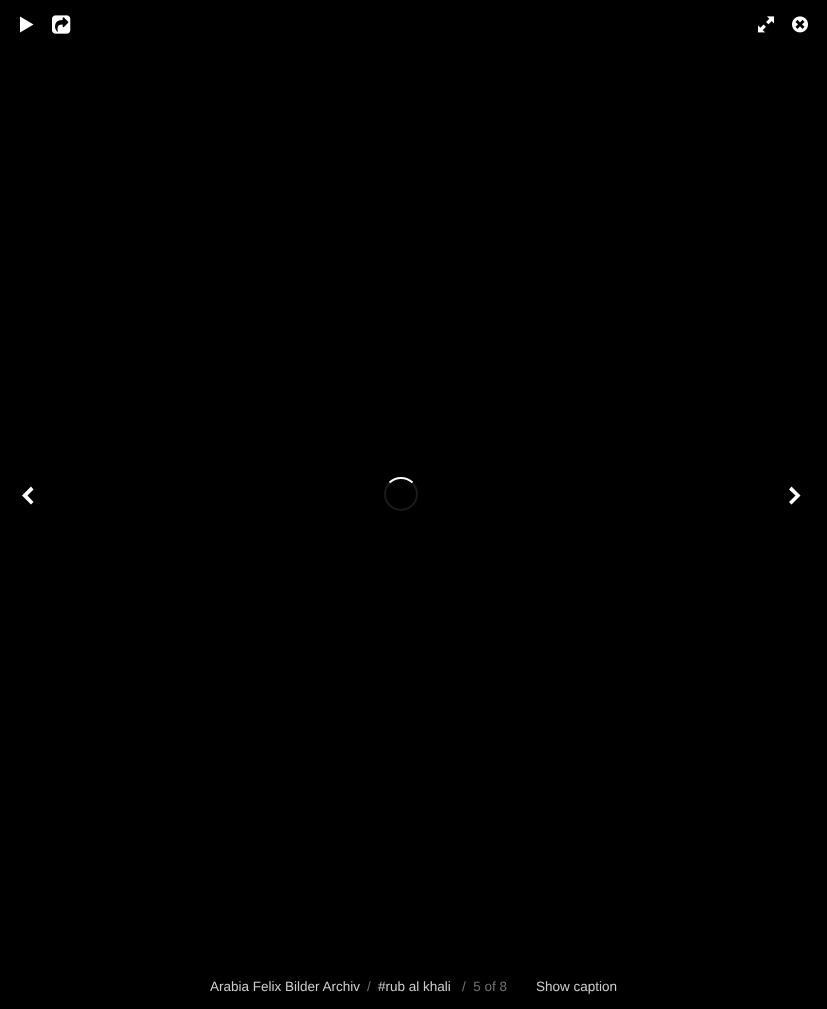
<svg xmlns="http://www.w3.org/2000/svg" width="827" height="1009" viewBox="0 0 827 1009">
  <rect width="100%" height="100%" fill="#000"/>
  <path d="M20 32.5V16.5L33.5 24.5Z" fill="#fff"/>
  <image x="52" y="15" width="19" height="19" href="img/1.png"/>
  <image x="758" y="16" width="16" height="17" href="img/2.png"/>
  <image x="792" y="16" width="16" height="17" href="img/3.png"/>
  <path d="M22 495.5L31 486.5L33.5 489.5L27.5 495.5L33.5 502L31 504.5Z" fill="#fff"/>
  <circle cx="401" cy="494" r="16" fill="none" stroke="#1a1a1a" stroke-width="2"/>
  <path d="M389.5 482.5C396 476.5 406 476.5 412.5 482.5" fill="none" stroke="#fff" stroke-width="2"/>
  <path d="M789 502L795.5 495.5L789 489.5L791.5 486.5L800.5 495.5L791.5 504.5Z" fill="#fff"/>
  <text x="210" y="991" font-family="Liberation Sans" font-size="13.5" fill="#ccc">Arabia Felix Bilder Archiv</text>
  <text x="367" y="991" font-family="Liberation Sans" font-size="13.5" fill="#707070">/</text>
  <text x="378" y="991" font-family="Liberation Sans" font-size="13.5" fill="#ccc">#rub al khali</text>
  <text x="462" y="991" font-family="Liberation Sans" font-size="13.5" fill="#707070" xml:space="preserve">/  5 of 8</text>
  <text x="536" y="991" font-family="Liberation Sans" font-size="13.5" fill="#ccc">Show caption</text>
</svg>
